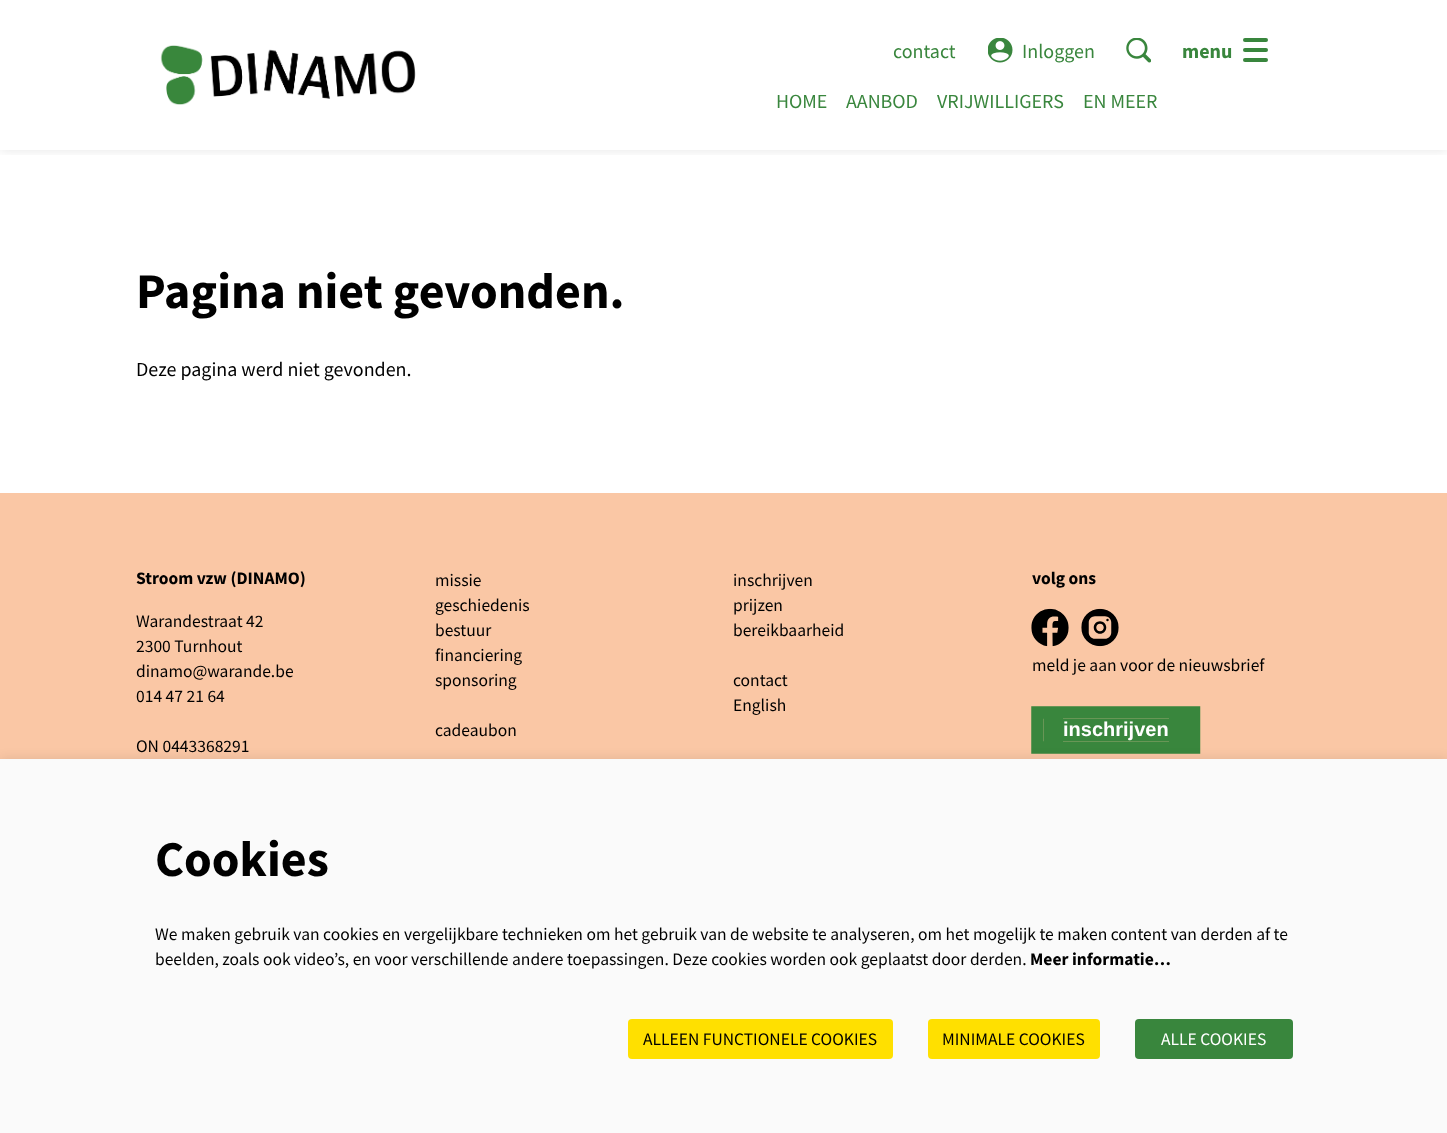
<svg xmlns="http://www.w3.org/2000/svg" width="1447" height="1133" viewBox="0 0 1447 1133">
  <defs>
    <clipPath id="clip1"><path d="M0 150h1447v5H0z"/></clipPath>
  </defs>
  <rect width="100%" height="100%" fill="#fff"/>
  <g clip-path="url(#clip1)">
    <path d="M0 0h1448v150H0z" fill="#0000001a" filter="blur(6px)"/>
  </g>
  <image x="160" y="45" width="256" height="60" href="img/1.png"/>
  <image x="988" y="38" width="25" height="25" href="img/2.png"/>
  <image x="1126" y="38" width="25" height="25" href="img/3.png"/>
  <rect x="1243" y="38" width="25" height="4" rx="2" fill="#39863d"/>
  <rect x="1243" y="48" width="25" height="4" rx="2" fill="#39863d"/>
  <rect x="1243" y="58" width="25" height="4" rx="2" fill="#39863d"/>
  <path d="M0 493h1447v266H0z" fill="#fac7a5"/>
  <image x="1031" y="608" width="38" height="39" href="img/4.png"/>
  <image x="1081" y="608" width="38" height="39" href="img/5.png"/>
  <path d="M1063 719h106v22H1063z" fill="#39863d"/>
  <path d="M1037.5 712.5H1194V747.5H1037.5Z" fill="none" stroke="#39863d" stroke-width="12.5"/>
  <path d="M1169 718h19v24H1169z" fill="#39863d"/>
  <path d="M1044 718h19v24H1044z" fill="#39863d"/>
  <path d="M0 759h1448v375H0z" fill="#0000001a" filter="blur(6px)"/>
  <path d="M0 759h1447v374H0z" fill="#fafafa"/>
  <rect x="628" y="1019" width="265" height="40" rx="4" fill="#ffe000"/>
  <rect x="928" y="1019" width="172" height="40" rx="4" fill="#ffe000"/>
  <rect x="1135" y="1019" width="158" height="40" rx="4" fill="#39863d"/>
  <g font-family="Source Sans Pro" font-size="20" fill="#39863d">
    <text x="893" y="58">contact</text>
    <text x="1022" y="58">Inloggen</text>
    <text x="776" y="108">HOME</text>
    <text x="846" y="108">AANBOD</text>
    <text x="937" y="108">VRIJWILLIGERS</text>
    <text x="1083" y="108">EN MEER</text>
  </g>
  <text x="1182" y="58" font-family="Source Sans Pro" font-size="20" font-weight="bold" fill="#39863d">menu</text>
  <text x="136" y="308" font-family="Source Sans Pro" font-size="50" font-weight="bold" fill="#000">Pagina niet gevonden.</text>
  <text x="136" y="376" font-family="Source Sans Pro" font-size="20" fill="#000">Deze pagina werd niet gevonden.</text>
  <text x="136" y="584" font-family="Source Sans Pro" font-size="17.5" font-weight="bold" fill="#000">Stroom vzw (DINAMO)</text>
  <g font-family="Source Sans Pro" font-size="17.5" fill="#000">
    <text x="136" y="627">Warandestraat 42</text>
    <text x="136" y="652">2300 Turnhout</text>
    <text x="136" y="677">dinamo@warande.be</text>
    <text x="136" y="702">014 47 21 64</text>
    <text x="136" y="752">ON 0443368291</text>
    <text x="435" y="586">missie</text>
    <text x="435" y="611">geschiedenis</text>
    <text x="435" y="636">bestuur</text>
    <text x="435" y="661">financiering</text>
    <text x="435" y="686">sponsoring</text>
    <text x="435" y="736">cadeaubon</text>
    <text x="733" y="586">inschrijven</text>
    <text x="733" y="611">prijzen</text>
    <text x="733" y="636">bereikbaarheid</text>
    <text x="733" y="686">contact</text>
    <text x="733" y="711">English</text>
  </g>
  <text x="1032" y="584" font-family="Source Sans Pro" font-size="17.5" font-weight="bold" fill="#000">volg ons</text>
  <text x="1032" y="671" font-family="Source Sans Pro" font-size="17.5" fill="#000">meld je aan voor de nieuwsbrief</text>
  <text x="1063" y="736" font-family="Liberation Sans" font-size="20" font-weight="bold" fill="#fff">inschrijven</text>
  <text x="155" y="876" font-family="Source Sans Pro" font-size="50" font-weight="bold" fill="#000">Cookies</text>
  <g font-family="Source Sans Pro" font-size="17.5" fill="#000">
    <text x="155" y="940">We maken gebruik van cookies en vergelijkbare technieken om het gebruik van de website te analyseren, om het mogelijk te maken content van derden af te</text>
    <text x="155" y="965">beelden, zoals ook video’s, en voor verschillende andere toepassingen. Deze cookies worden ook geplaatst door derden.</text>
  </g>
  <text x="1030" y="965" font-family="Source Sans Pro" font-size="17.5" font-weight="bold" fill="#000">Meer informatie…</text>
  <g font-family="Source Sans Pro" font-size="17.5" fill="#000">
    <text x="643" y="1045">ALLEEN FUNCTIONELE COOKIES</text>
    <text x="942" y="1045">MINIMALE COOKIES</text>
  </g>
  <text x="1161" y="1045" font-family="Source Sans Pro" font-size="17.5" fill="#fff">ALLE COOKIES</text>
</svg>
